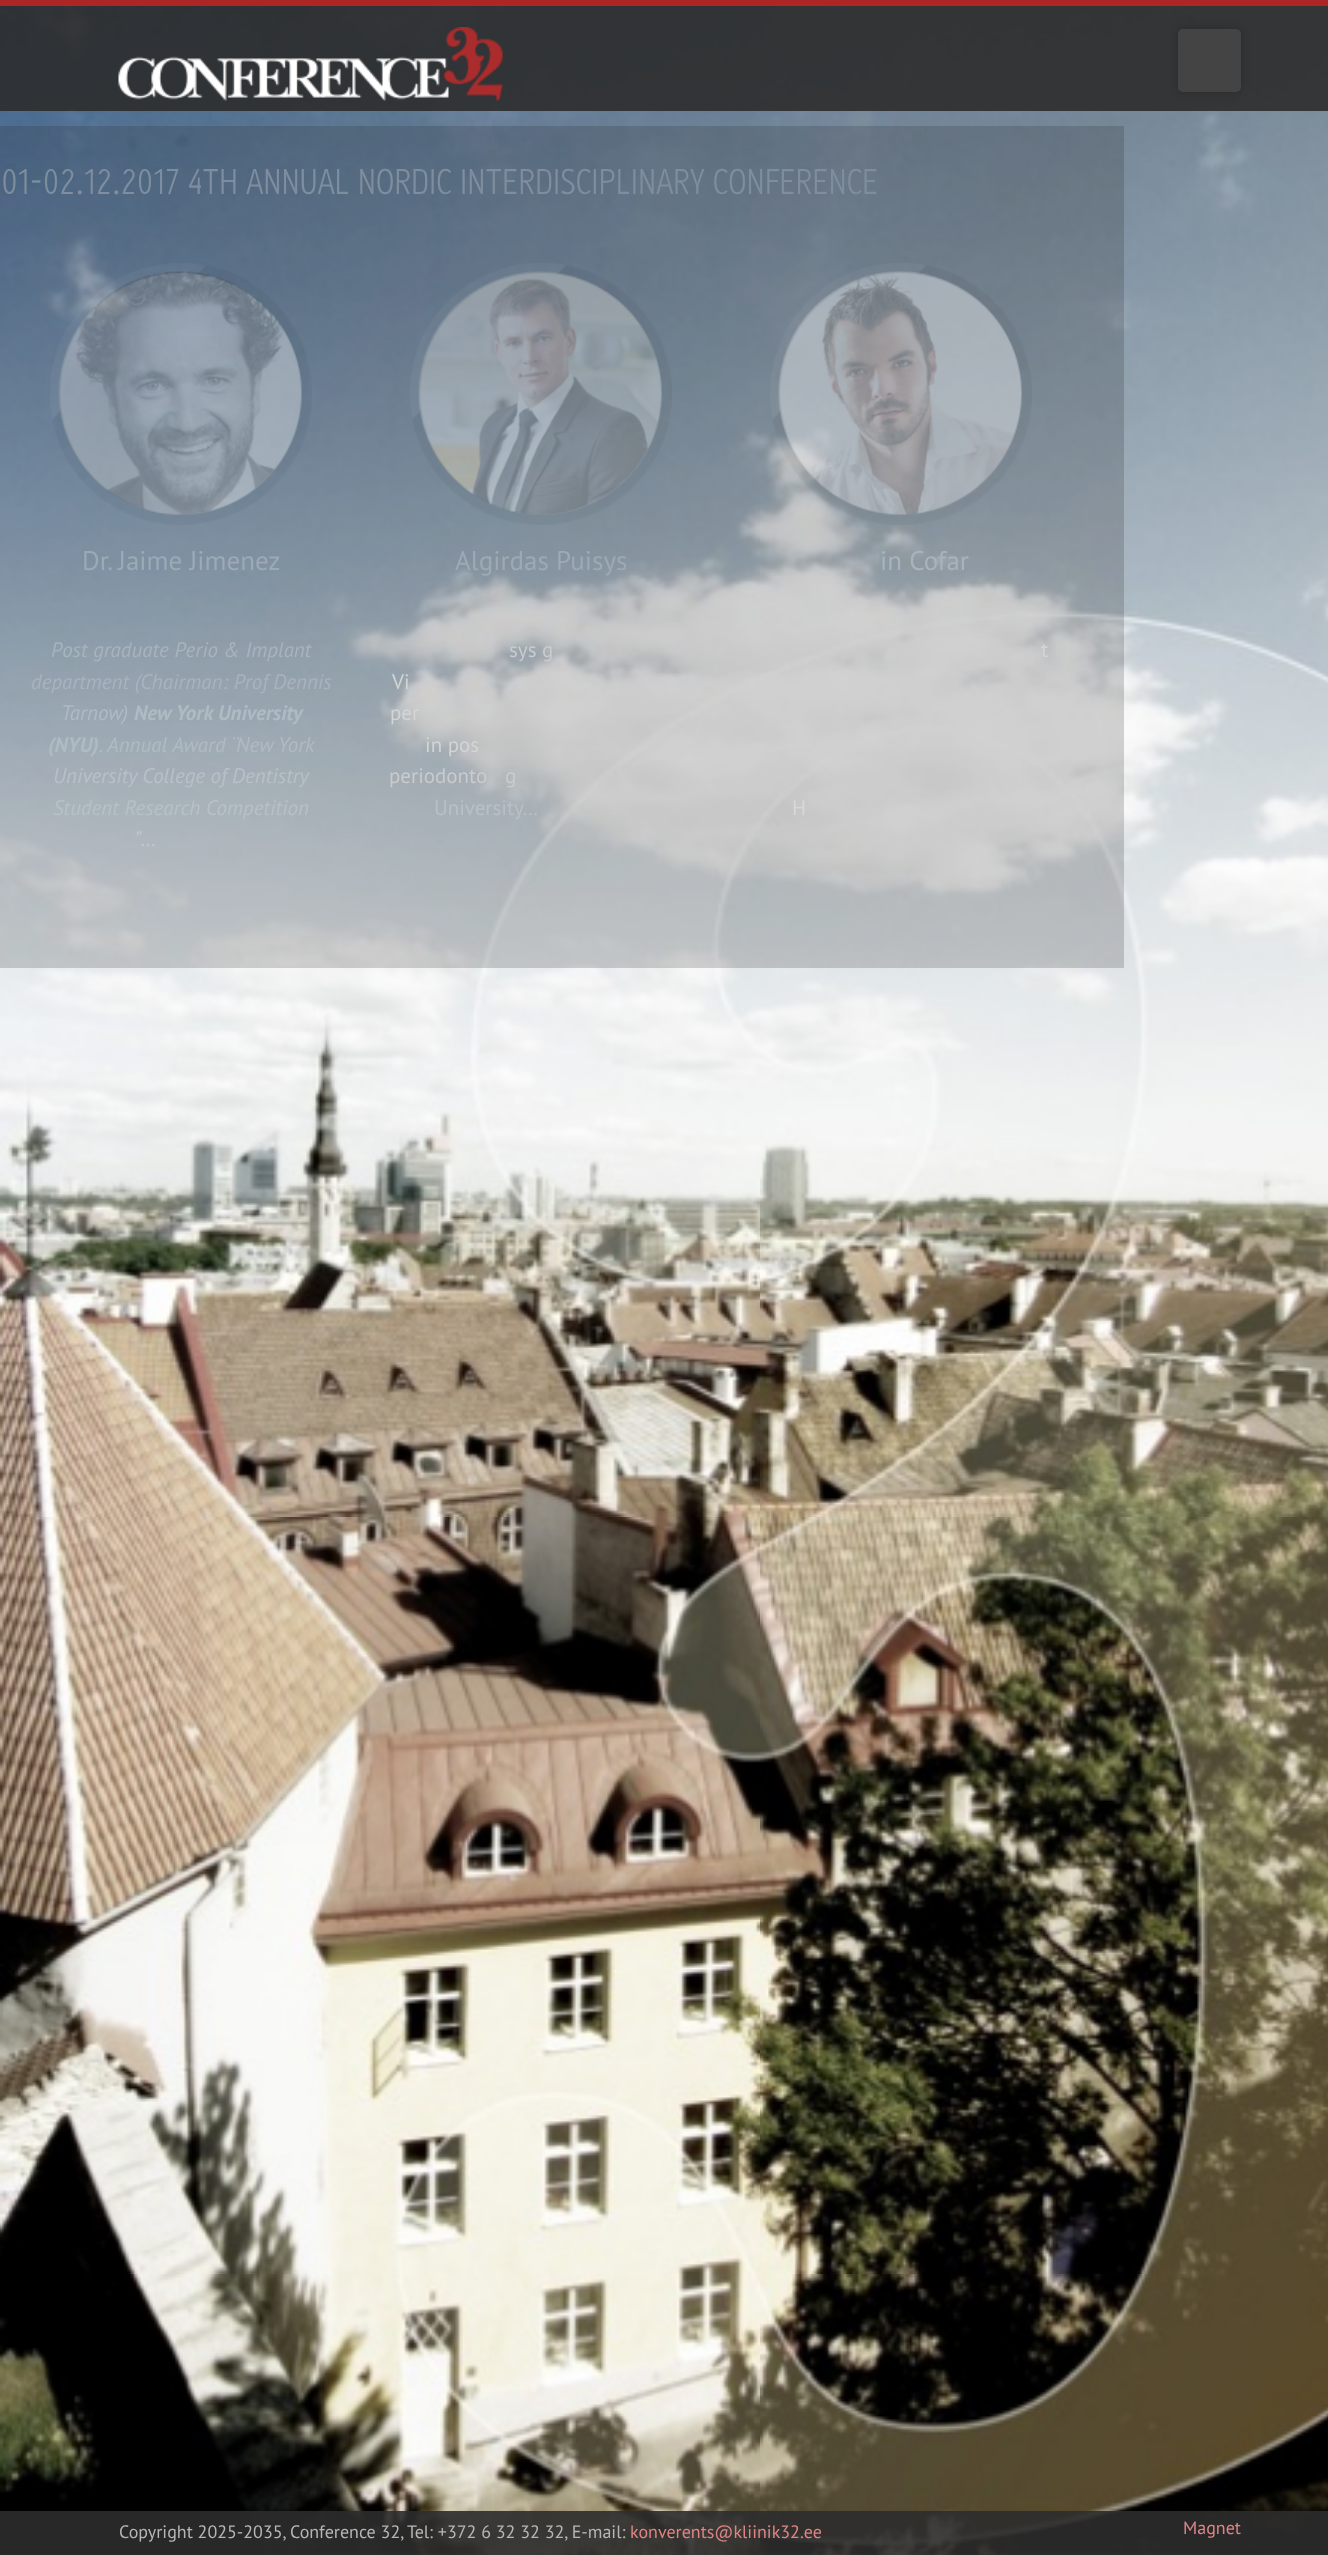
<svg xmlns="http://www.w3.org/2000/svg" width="1328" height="2555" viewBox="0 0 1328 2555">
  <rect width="100%" height="100%" fill="#fff"/>
  <image x="0" y="2553" width="1328" height="2" href="img/2.png"/>
  <image x="0" y="6" width="1328" height="2549" href="img/1.png"/>
  <path d="M0 6h1328v105H0z" fill="#2c2c2ce6"/>
  <path d="M0 0h1328v6H0z" fill="#ad2525"/>
  <image x="118" y="27" width="385" height="74" href="img/3.png"/>
  <rect x="1178" y="29" width="63" height="63" rx="5" fill="#00000033" filter="blur(4px)"/>
  <rect x="1178" y="29" width="63" height="63" rx="5" fill="#444"/>
  <path d="M0 126h1124v842H0z" fill="#28282833"/>
  <image x="50" y="263" width="262" height="262" href="img/4.png"/>
  <image x="58" y="271" width="244" height="244" href="img/5.png"/>
  <image x="410" y="263" width="262" height="262" href="img/6.png"/>
  <image x="418" y="271" width="244" height="244" href="img/7.png"/>
  <image x="770" y="263" width="262" height="262" href="img/8.png"/>
  <image x="778" y="271" width="244" height="244" href="img/9.png"/>
  <path d="M0 2511h1328v44H0z" fill="#2c2c2ce6"/>
  <text x="1" y="194" font-family="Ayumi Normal" font-size="36" fill="#7f8e9e">01-02.12.2017 4TH ANNUAL NORDIC INTERDISCIPLINARY CONFERENCE</text>
  <text x="82" y="570" font-family="PT Sans" font-size="27" fill="#9ca9b6">Dr. Jaime Jimenez</text>
  <g font-family="PT Sans" font-size="21" font-style="italic" fill="#a8b3bd">
    <text x="51" y="657">Post graduate Perio &amp; Implant</text>
    <text x="31" y="689">department (Chairman: Prof Dennis</text>
  </g>
  <text x="61" y="720" font-family="PT Sans" font-size="21" font-style="italic" fill="#b0bac3">Tarnow)</text>
  <g font-family="PT Sans" font-size="21" font-weight="bold" font-style="italic" fill="#b0bac3">
    <text x="134" y="720">New York University</text>
    <text x="48" y="752">(NYU)</text>
  </g>
  <g font-family="PT Sans" font-size="21" font-style="italic" fill="#b0bac3">
    <text x="99" y="752">.</text>
    <text x="107" y="752">Annual Award ¨</text>
    <text x="236" y="752">New York</text>
  </g>
  <g font-family="PT Sans" font-size="21" font-style="italic" fill="#b8c0c7">
    <text x="53" y="783">University College of Dentistry</text>
    <text x="53" y="815">Student Research Competition</text>
  </g>
  <text x="134" y="846" font-family="PT Sans" font-size="21" font-style="italic" fill="#c1c7cc">”</text>
  <text x="140" y="846" font-family="PT Sans" font-size="21" fill="#c1c7cc">…</text>
  <text x="455" y="570" font-family="PT Sans" font-size="27" fill="#9ca9b6">Algirdas Puisys</text>
  <text x="509" y="657" font-family="PT Sans" font-size="21" fill="#c9cbcd">sys g</text>
  <g font-family="PT Sans" font-size="21" fill="#d2d4d5">
    <text x="392" y="689">Vi</text>
    <text x="390" y="720">per</text>
    <text x="425" y="752">in pos</text>
  </g>
  <g font-family="PT Sans" font-size="21" fill="#c9cbcd">
    <text x="389" y="783">periodonto</text>
    <text x="505" y="783">g</text>
  </g>
  <text x="434" y="815" font-family="PT Sans" font-size="21" fill="#b8c0c7">University…</text>
  <text x="880" y="570" font-family="PT Sans" font-size="27" fill="#a8b3bd">in Cofar</text>
  <text x="1041" y="657" font-family="PT Sans" font-size="21" fill="#d2d4d5">t</text>
  <text x="792" y="815" font-family="PT Sans" font-size="21" fill="#d8d8d8">H</text>
  <g font-family="PT Sans" font-size="18" fill="#b6b6b6">
    <text x="119" y="2538">Copyright 2025-2035, Conference 32,</text>
    <text x="407" y="2538">Tel: +372 6 32 32 32, E-mail:</text>
  </g>
  <g font-family="PT Sans" font-size="18" fill="#e08484">
    <text x="630" y="2538">konverents@kliinik32.ee</text>
    <text x="1183" y="2534">Magnet</text>
  </g>
</svg>
